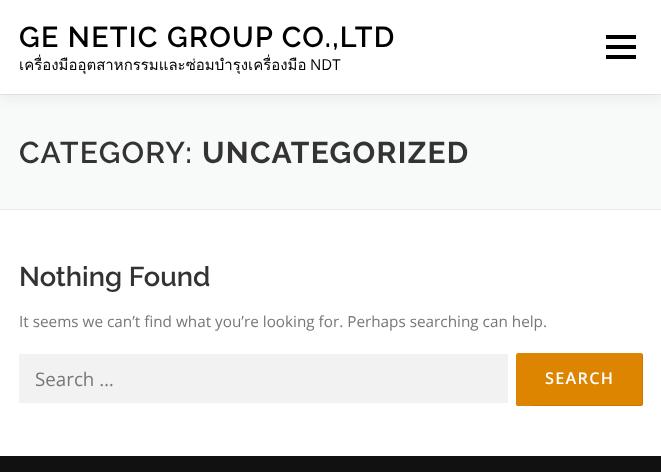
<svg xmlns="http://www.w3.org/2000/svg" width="661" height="472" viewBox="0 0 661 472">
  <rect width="100%" height="100%" fill="#fff"/>
  <path d="M0 95h661v114H0z" fill="#f8f9f9"/>
  <path d="M0 94h661v1H0z" fill="#e9e9e9"/>
  <path d="M0 6h661v94H0z" fill="#3232320f" filter="blur(6px)"/>
  <path d="M0 1h661v93H0z" fill="#fff"/>
  <path d="M606 45h30v4H606z" fill="#000"/>
  <path d="M606 35h30v4H606z" fill="#000"/>
  <path d="M606 55h30v4H606z" fill="#000"/>
  <path d="M0 209h661v1H0z" fill="#e9e9e9"/>
  <path d="M19 354h489v49H19z" fill="#f2f2f2"/>
  <rect x="516" y="353" width="127" height="53" rx="2.5" fill="#dd8500"/>
  <path d="M516 402V404C516 405 517 406 518 406H640C642 406 643 405 643 404V356C643 355 643 354 642 353V394C642 398 643 405 640 405H539C534 405 516 409 516 402Z" fill="#0000001a"/>
  <path d="M0 456h661v16H0z" fill="#111"/>
  <text x="19" y="47" font-family="Raleway" font-size="28.75" font-weight="600" letter-spacing="1.25" fill="#000">GE NETIC GROUP CO.,LTD</text>
  <text x="19" y="70" font-family="Loma" font-size="15" fill="#000">เครื่องมืออุตสาหกรรมและซ่อมบำรุงเครื่องมือ</text>
  <text x="310" y="70" font-family="Open Sans" font-size="15" fill="#000">NDT</text>
  <text x="19" y="163" font-family="Raleway" font-size="30" font-weight="600" letter-spacing="1.25" fill="#333">CATEGORY:</text>
  <text x="202" y="163" font-family="Raleway" font-size="30" font-weight="bold" letter-spacing="1.25" fill="#333">UNCATEGORIZED</text>
  <text x="19" y="286" font-family="Raleway" font-size="27.25" font-weight="600" fill="#333">Nothing Found</text>
  <text x="19" y="327" font-family="Open Sans" font-size="15.3" fill="#777">It seems we can’t find what you’re looking for. Perhaps searching can help.</text>
  <text x="35" y="386" font-family="Open Sans" font-size="18.75" fill="#777">Search …</text>
  <text x="545" y="384" font-family="Open Sans" font-size="16.25" font-weight="600" letter-spacing="1.25" fill="#fff">SEARCH</text>
</svg>
